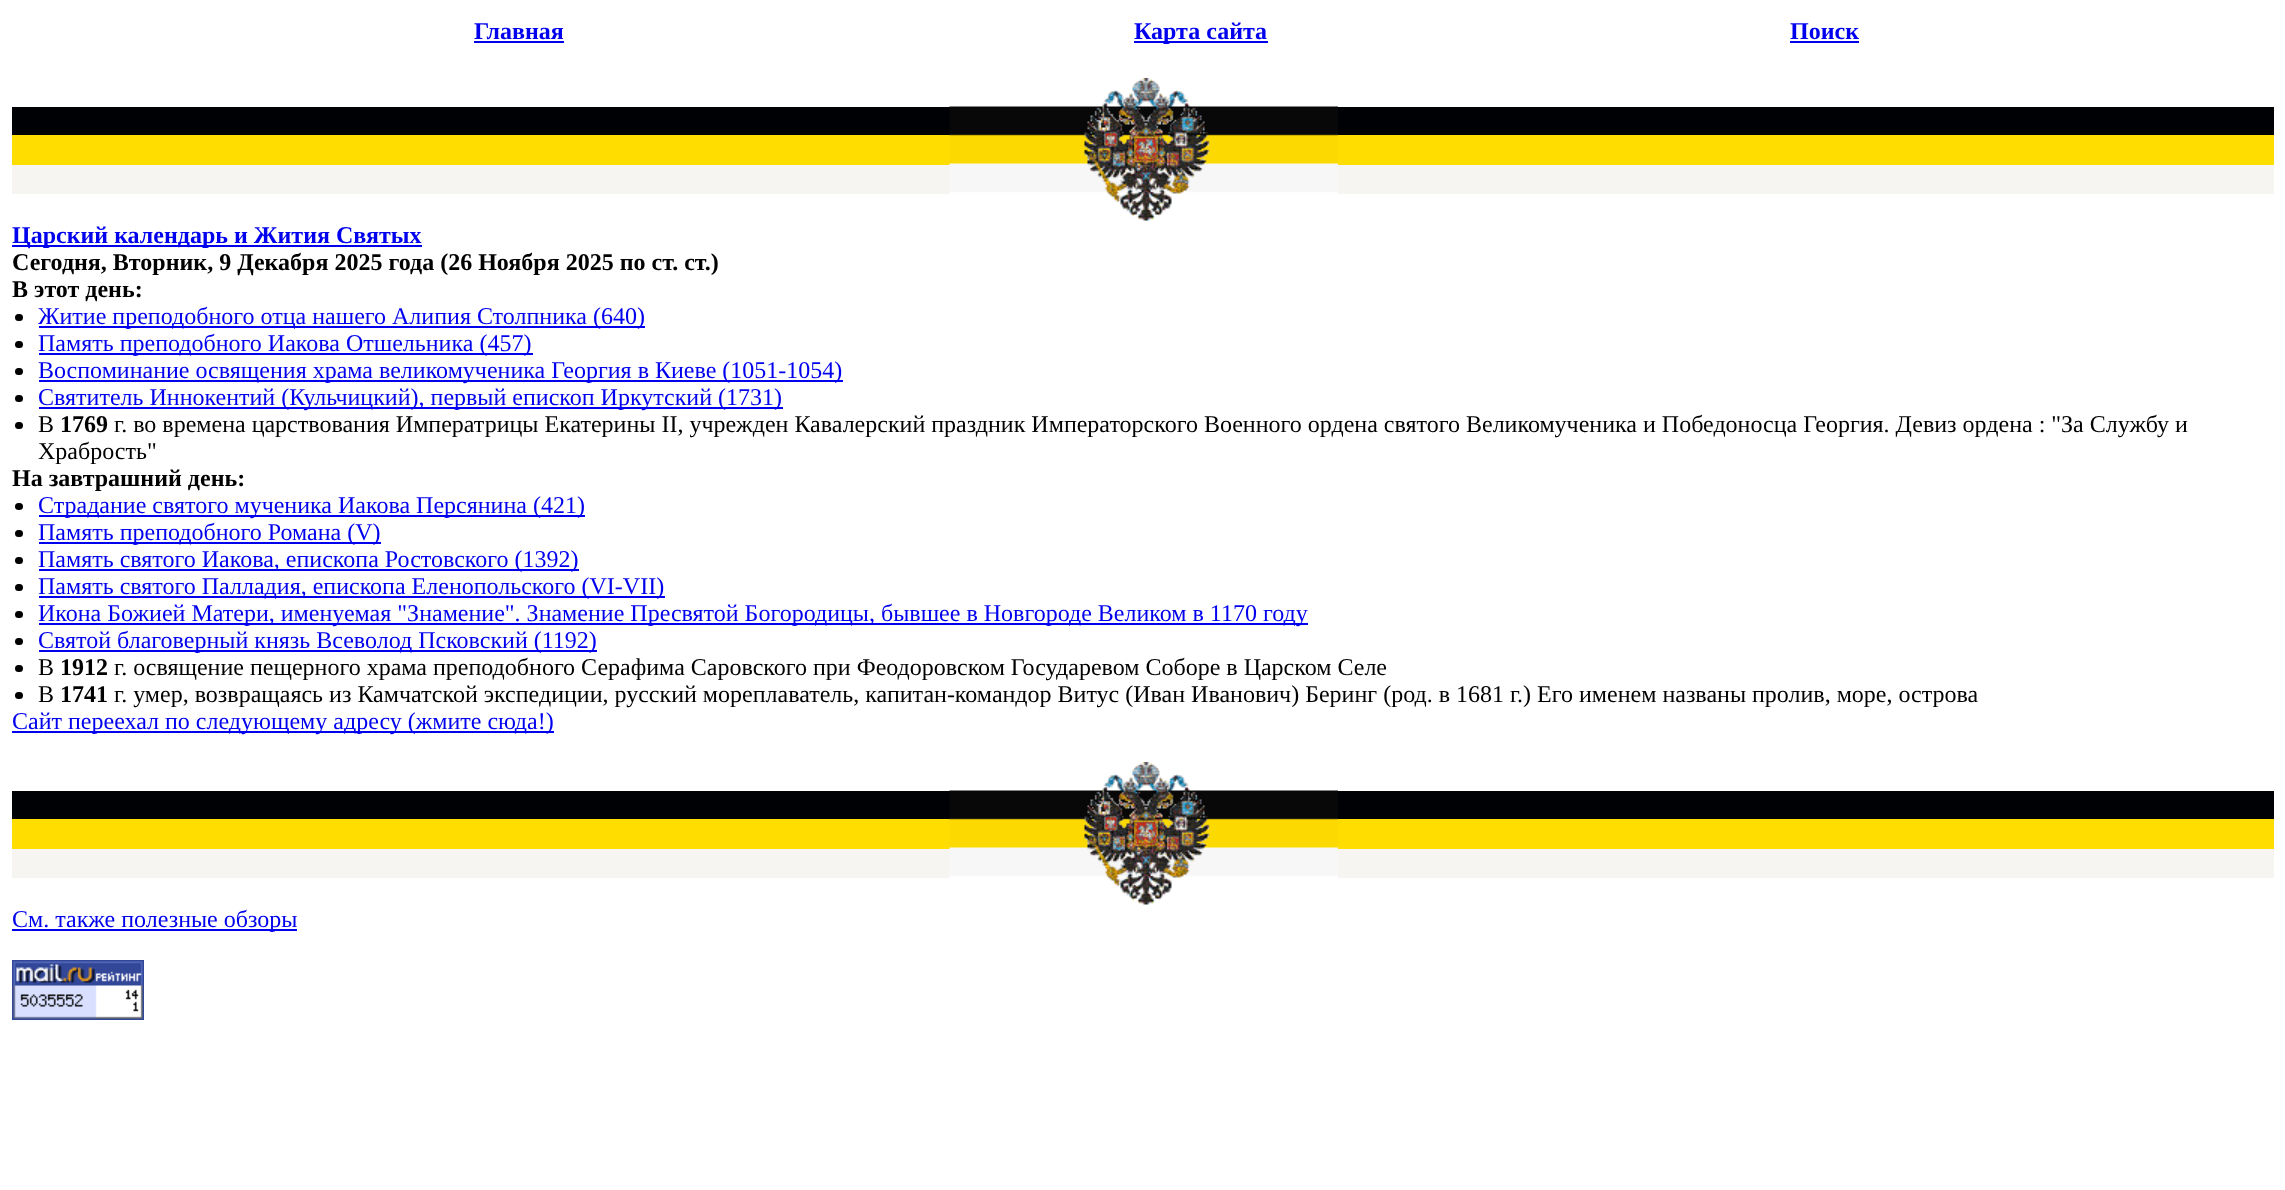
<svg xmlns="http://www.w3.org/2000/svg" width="2285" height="1190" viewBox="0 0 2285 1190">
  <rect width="100%" height="100%" fill="#fff"/>
  <path d="M474 41h90v2H474z" fill="#00e"/>
  <path d="M1134 41h134v2H1134z" fill="#00e"/>
  <path d="M1790 41h69v2H1790z" fill="#00e"/>
  <path d="M12 107h938v28H12z" fill="#000105"/>
  <path d="M12 135h938v30H12z" fill="#fd0"/>
  <path d="M12 165h938v29H12z" fill="#f6f5f2"/>
  <image x="949" y="78" width="389" height="143" href="img/1.png"/>
  <path d="M1338 107h936v28H1338z" fill="#000105"/>
  <path d="M1338 135h936v30H1338z" fill="#fd0"/>
  <path d="M1338 165h936v29H1338z" fill="#f6f5f2"/>
  <path d="M12 245h410v2H12z" fill="#00e"/>
  <rect x="15" y="314" width="8" height="7" rx="3.5" fill="#000"/>
  <path d="M39 326h606v2H39z" fill="#00e"/>
  <rect x="15" y="341" width="8" height="7" rx="3.5" fill="#000"/>
  <path d="M39 353h494v2H39z" fill="#00e"/>
  <rect x="15" y="368" width="8" height="7" rx="3.5" fill="#000"/>
  <path d="M39 380h804v2H39z" fill="#00e"/>
  <rect x="15" y="395" width="8" height="7" rx="3.5" fill="#000"/>
  <path d="M39 407h744v2H39z" fill="#00e"/>
  <rect x="15" y="422" width="8" height="7" rx="3.5" fill="#000"/>
  <rect x="15" y="503" width="8" height="7" rx="3.5" fill="#000"/>
  <path d="M39 515h546v2H39z" fill="#00e"/>
  <rect x="15" y="530" width="8" height="7" rx="3.5" fill="#000"/>
  <path d="M39 542h342v2H39z" fill="#00e"/>
  <rect x="15" y="557" width="8" height="7" rx="3.5" fill="#000"/>
  <path d="M39 569h540v2H39z" fill="#00e"/>
  <rect x="15" y="584" width="8" height="7" rx="3.5" fill="#000"/>
  <path d="M39 596h626v2H39z" fill="#00e"/>
  <rect x="15" y="611" width="8" height="7" rx="3.5" fill="#000"/>
  <path d="M39 623h1269v2H39z" fill="#00e"/>
  <rect x="15" y="638" width="8" height="7" rx="3.5" fill="#000"/>
  <path d="M39 650h558v2H39z" fill="#00e"/>
  <rect x="15" y="665" width="8" height="7" rx="3.5" fill="#000"/>
  <rect x="15" y="692" width="8" height="7" rx="3.5" fill="#000"/>
  <path d="M12 731h542v2H12z" fill="#00e"/>
  <path d="M12 791h938v28H12z" fill="#000105"/>
  <path d="M12 819h938v30H12z" fill="#fd0"/>
  <path d="M12 849h938v29H12z" fill="#f6f5f2"/>
  <image x="949" y="762" width="389" height="143" href="img/1.png"/>
  <path d="M1338 791h936v28H1338z" fill="#000105"/>
  <path d="M1338 819h936v30H1338z" fill="#fd0"/>
  <path d="M1338 849h936v29H1338z" fill="#f6f5f2"/>
  <path d="M12 929h285v2H12z" fill="#00e"/>
  <image x="12" y="960" width="132" height="60" href="img/2.png"/>
  <g font-family="Liberation Serif" font-size="24" font-weight="bold" fill="#00e">
    <text x="474" y="39">Главная</text>
    <text x="1134" y="39">Карта сайта</text>
    <text x="1790" y="39">Поиск</text>
    <text x="12" y="243">Царский календарь и Жития Святых</text>
  </g>
  <g font-family="Liberation Serif" font-size="24" font-weight="bold" fill="#000">
    <text x="12" y="270">Сегодня, Вторник, 9 Декабря 2025 года (26 Ноября 2025 по ст. ст.)</text>
    <text x="12" y="297">В этот день:</text>
  </g>
  <g font-family="Liberation Serif" font-size="24" fill="#00e">
    <text x="38" y="324">Житие преподобного отца нашего Алипия Столпника (640)</text>
    <text x="38" y="351">Память преподобного Иакова Отшельника (457)</text>
    <text x="38" y="378">Воспоминание освящения храма великомученика Георгия в Киеве (1051-1054)</text>
    <text x="38" y="405">Святитель Иннокентий (Кульчицкий), первый епископ Иркутский (1731)</text>
  </g>
  <text x="38" y="432" font-family="Liberation Serif" font-size="24" fill="#000">В</text>
  <text x="60" y="432" font-family="Liberation Serif" font-size="24" font-weight="bold" fill="#000">1769</text>
  <g font-family="Liberation Serif" font-size="24" fill="#000">
    <text x="114" y="432">г. во времена царствования Императрицы Екатерины II, учрежден Кавалерский праздник Императорского Военного ордена святого Великомученика и Победоносца Георгия. Девиз ордена : "За Службу и</text>
    <text x="38" y="459">Храбрость"</text>
  </g>
  <text x="12" y="486" font-family="Liberation Serif" font-size="24" font-weight="bold" fill="#000">На завтрашний день:</text>
  <g font-family="Liberation Serif" font-size="24" fill="#00e">
    <text x="38" y="513">Страдание святого мученика Иакова Персянина (421)</text>
    <text x="38" y="540">Память преподобного Романа (V)</text>
    <text x="38" y="567">Память святого Иакова, епископа Ростовского (1392)</text>
    <text x="38" y="594">Память святого Палладия, епископа Еленопольского (VI-VII)</text>
    <text x="38" y="621">Икона Божией Матери, именуемая "Знамение". Знамение Пресвятой Богородицы, бывшее в Новгороде Великом в 1170 году</text>
    <text x="38" y="648">Святой благоверный князь Всеволод Псковский (1192)</text>
  </g>
  <text x="38" y="675" font-family="Liberation Serif" font-size="24" fill="#000">В</text>
  <text x="60" y="675" font-family="Liberation Serif" font-size="24" font-weight="bold" fill="#000">1912</text>
  <g font-family="Liberation Serif" font-size="24" fill="#000">
    <text x="114" y="675">г. освящение пещерного храма преподобного Серафима Саровского при Феодоровском Государевом Соборе в Царском Селе</text>
    <text x="38" y="702">В</text>
  </g>
  <text x="60" y="702" font-family="Liberation Serif" font-size="24" font-weight="bold" fill="#000">1741</text>
  <text x="114" y="702" font-family="Liberation Serif" font-size="24" fill="#000">г. умер, возвращаясь из Камчатской экспедиции, русский мореплаватель, капитан-командор Витус (Иван Иванович) Беринг (род. в 1681 г.) Его именем названы пролив, море, острова</text>
  <g font-family="Liberation Serif" font-size="24" fill="#00e">
    <text x="12" y="729">Сайт переехал по следующему адресу (жмите сюда!)</text>
    <text x="12" y="927">См. также полезные обзоры</text>
  </g>
</svg>
